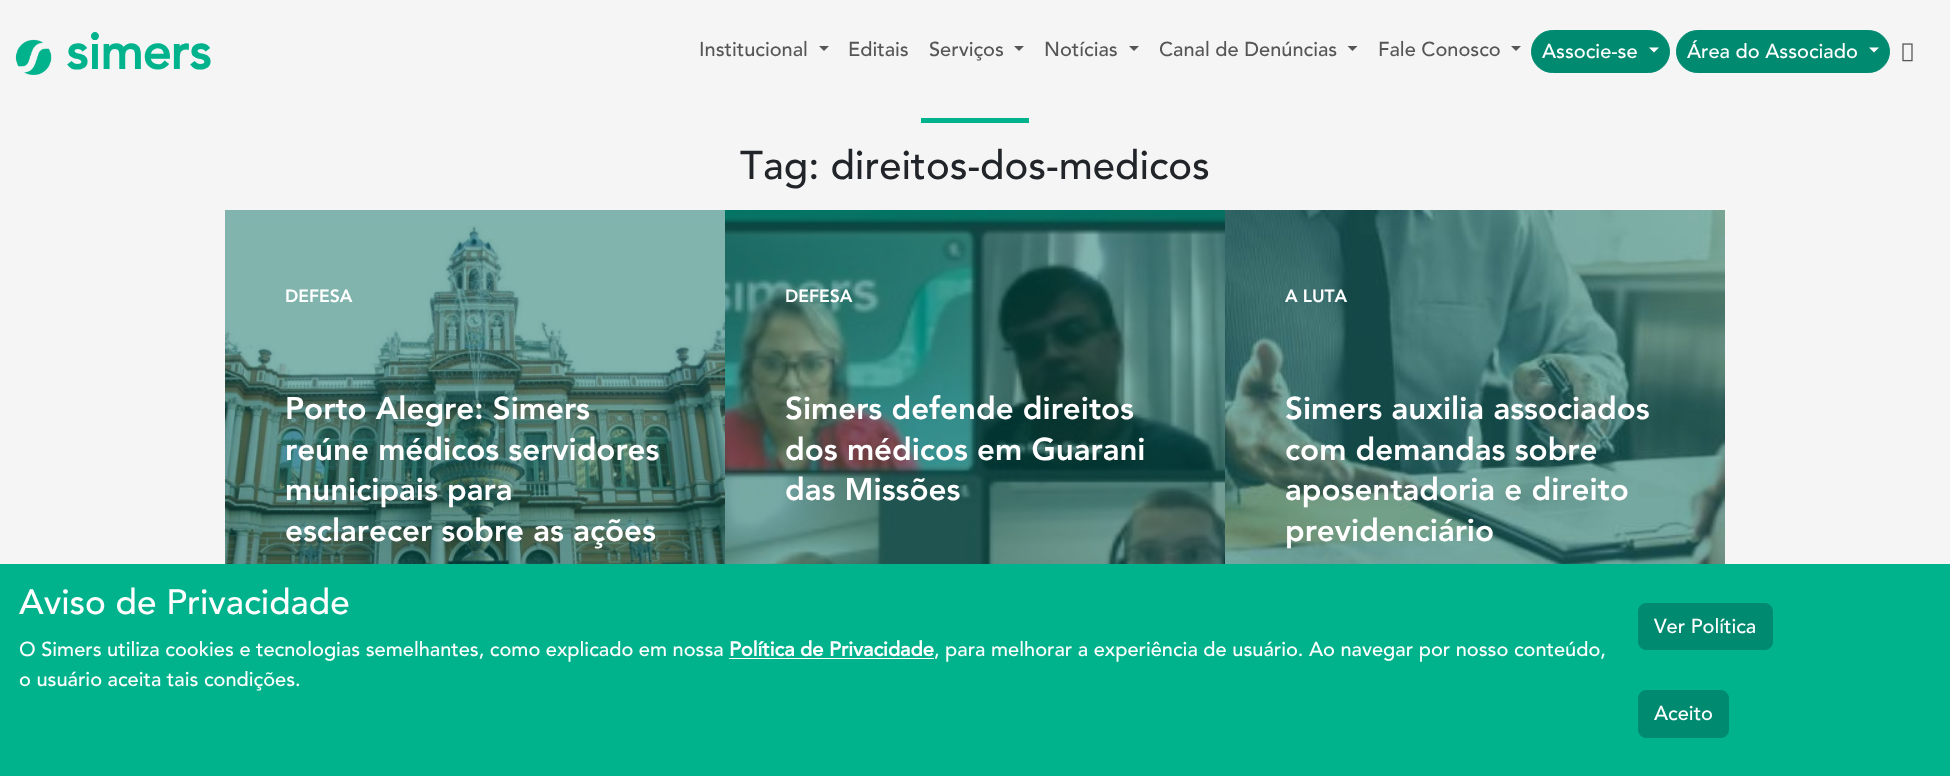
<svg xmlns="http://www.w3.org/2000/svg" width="1950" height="776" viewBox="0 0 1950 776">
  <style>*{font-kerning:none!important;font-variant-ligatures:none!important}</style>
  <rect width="100%" height="100%" fill="#f5f5f5"/>
  <image x="15" y="39" width="37" height="36" href="img/1.png"/>
  <path d="M819 46H829L824 51Z" fill="#565656"/>
  <path d="M1014 46H1024L1019 51Z" fill="#565656"/>
  <path d="M1129 46H1139L1134 51Z" fill="#565656"/>
  <path d="M1347.5 46H1357.5L1352.5 51Z" fill="#565656"/>
  <path d="M1511 46H1521L1516 51Z" fill="#565656"/>
  <rect x="1531.5" y="30.5" width="138" height="42" rx="21" fill="#008b71" stroke="#008b71"/>
  <path d="M1649 47.5H1659L1654 52.5Z" fill="#fff"/>
  <rect x="1676.5" y="30.5" width="213" height="42" rx="21" fill="#008b71" stroke="#008b71"/>
  <path d="M1869 47.5H1879L1874 52.5Z" fill="#fff"/>
  <image x="1902" y="43" width="11" height="19" href="img/2.png"/>
  <path d="M921 118h108v5H921z" fill="#00b38d"/>
  <path d="M225 210h500v15H225z" fill="#82b4af"/>
  <image x="225" y="225" width="500" height="339" href="img/3.png"/>
  <image x="725" y="210" width="500" height="354" href="img/4.png"/>
  <image x="1225" y="210" width="500" height="354" href="img/5.png"/>
  <path d="M0 564h1950v212H0z" fill="#00b38d"/>
  <path d="M729 658h205v1H729z" fill="#fff"/>
  <rect x="1638.5" y="603.5" width="134" height="46" rx="7.5" fill="#008b71" stroke="#008b71"/>
  <rect x="1638.5" y="690.5" width="90" height="47" rx="7.5" fill="#008b71" stroke="#008b71"/>
  <text x="66" y="69" font-family="Avenir" font-size="50" font-weight="bold" fill="#00b38d">simers</text>
  <g font-family="Avenir" font-size="20" font-weight="500" fill="#565656">
    <text x="699" y="56">Institucional</text>
    <text x="848" y="56">Editais</text>
    <text x="929" y="56">Serviços</text>
    <text x="1044" y="56">Notícias</text>
    <text x="1159" y="56">Canal de Denúncias</text>
    <text x="1378" y="56">Fale Conosco</text>
  </g>
  <g font-family="Avenir" font-size="20" font-weight="500" fill="#fff">
    <text x="1542" y="58">Associe-se</text>
    <text x="1687" y="58">Área do Associado</text>
  </g>
  <text x="740" y="179" font-family="Avenir" font-size="40" font-weight="500" fill="#212529">Tag: direitos-dos-medicos</text>
  <text x="285" y="302" font-family="Avenir" font-size="17.5" font-weight="900" fill="#fff">DEFESA</text>
  <g font-family="Avenir" font-size="31.25" font-weight="900" fill="#fff">
    <text x="285" y="419">Porto Alegre: Simers</text>
    <text x="285" y="460">reúne médicos servidores</text>
    <text x="285" y="500">municipais para</text>
    <text x="285" y="541">esclarecer sobre as ações</text>
  </g>
  <text x="785" y="302" font-family="Avenir" font-size="17.5" font-weight="900" fill="#fff">DEFESA</text>
  <g font-family="Avenir" font-size="31.25" font-weight="900" fill="#fff">
    <text x="785" y="419">Simers defende direitos</text>
    <text x="785" y="460">dos médicos em Guarani</text>
    <text x="785" y="500">das Missões</text>
  </g>
  <text x="1285" y="302" font-family="Avenir" font-size="17.5" font-weight="900" fill="#fff">A LUTA</text>
  <g font-family="Avenir" font-size="31.25" font-weight="900" fill="#fff">
    <text x="1285" y="419">Simers auxilia associados</text>
    <text x="1285" y="460">com demandas sobre</text>
    <text x="1285" y="500">aposentadoria e direito</text>
    <text x="1285" y="541">previdenciário</text>
  </g>
  <text x="19" y="614" font-family="Avenir" font-size="35" font-weight="500" fill="#fff">Aviso de Privacidade</text>
  <text x="19" y="656" font-family="Avenir" font-size="20" font-weight="500" fill="#fff">O Simers utiliza cookies e tecnologias semelhantes, como explicado em nossa</text>
  <text x="729" y="656" font-family="Avenir" font-size="20" font-weight="bold" fill="#fff">Política de Privacidade</text>
  <g font-family="Avenir" font-size="20" font-weight="500" fill="#fff">
    <text x="934" y="656">, para melhorar a experiência de usuário. Ao navegar por nosso conteúdo,</text>
    <text x="19" y="686">o usuário aceita tais condições.</text>
    <text x="1654" y="633">Ver Política</text>
    <text x="1654" y="720">Aceito</text>
  </g>
</svg>
